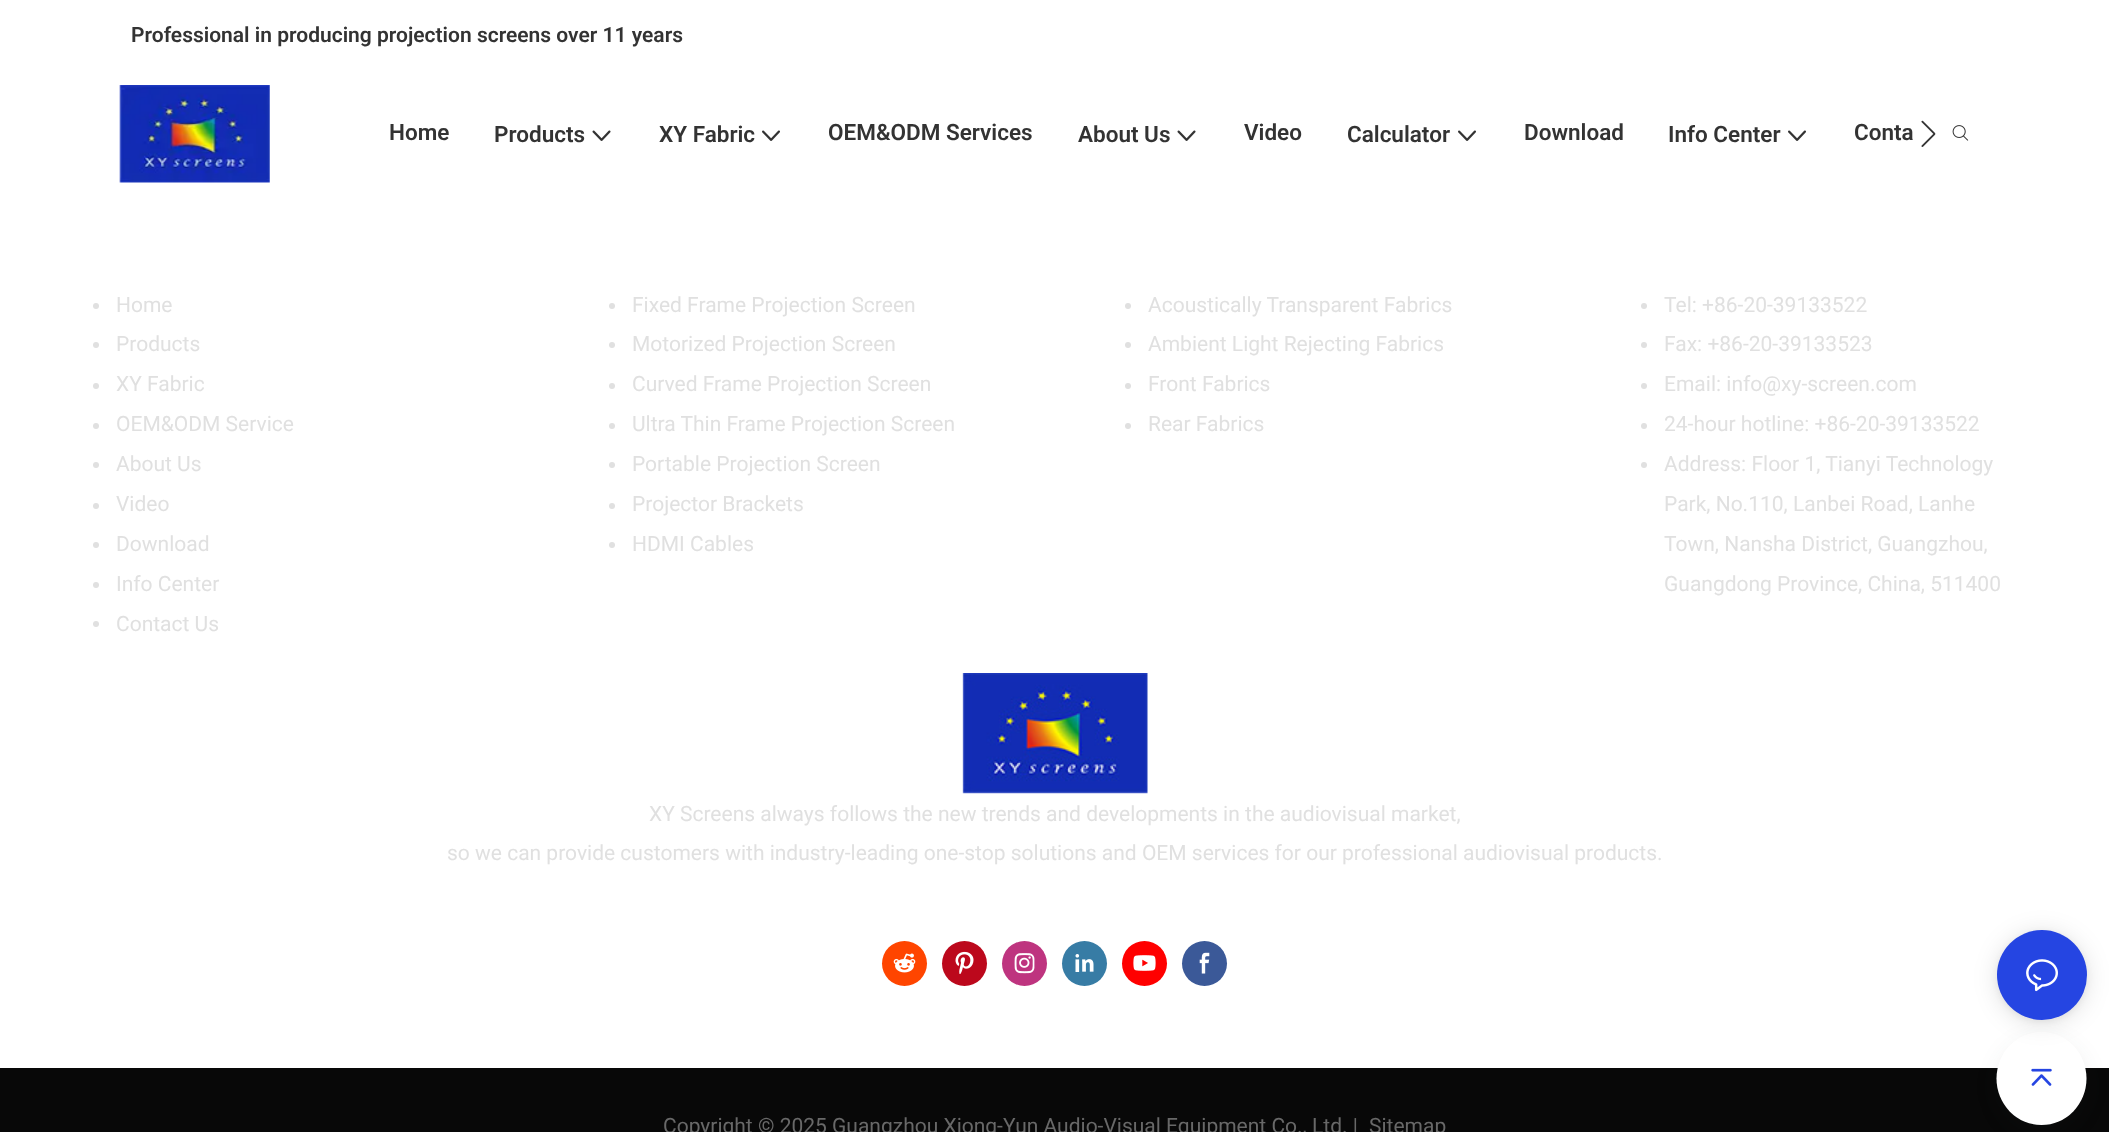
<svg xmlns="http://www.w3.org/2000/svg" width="2109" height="1132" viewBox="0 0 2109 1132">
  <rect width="100%" height="100%" fill="#fff"/>
  <image x="119" y="85" width="151" height="98" href="img/1.png"/>
  <image x="592" y="130" width="19" height="11" href="img/2.png"/>
  <image x="762" y="130" width="18" height="11" href="img/3.png"/>
  <image x="1177" y="130" width="19" height="11" href="img/2.png"/>
  <image x="1458" y="130" width="18" height="11" href="img/3.png"/>
  <image x="1788" y="130" width="18" height="11" href="img/3.png"/>
  <image x="1921" y="120" width="15" height="27" href="img/4.png"/>
  <image x="1952" y="125" width="17" height="16" href="img/5.png"/>
  <circle cx="96" cy="306" r="3" fill="#e0e0e0"/>
  <circle cx="96" cy="345" r="3" fill="#e0e0e0"/>
  <circle cx="96" cy="386" r="3" fill="#e0e0e0"/>
  <circle cx="96" cy="426" r="3" fill="#e0e0e0"/>
  <circle cx="96" cy="465" r="3" fill="#e0e0e0"/>
  <circle cx="96" cy="506" r="3" fill="#e0e0e0"/>
  <circle cx="96" cy="545" r="3" fill="#e0e0e0"/>
  <circle cx="96" cy="585" r="3" fill="#e0e0e0"/>
  <circle cx="96" cy="624" r="3" fill="#e0e0e0"/>
  <circle cx="612" cy="306" r="3" fill="#e0e0e0"/>
  <circle cx="612" cy="345" r="3" fill="#e0e0e0"/>
  <circle cx="612" cy="386" r="3" fill="#e0e0e0"/>
  <circle cx="612" cy="426" r="3" fill="#e0e0e0"/>
  <circle cx="612" cy="465" r="3" fill="#e0e0e0"/>
  <circle cx="612" cy="506" r="3" fill="#e0e0e0"/>
  <circle cx="612" cy="545" r="3" fill="#e0e0e0"/>
  <circle cx="1128" cy="306" r="3" fill="#e0e0e0"/>
  <circle cx="1128" cy="345" r="3" fill="#e0e0e0"/>
  <circle cx="1128" cy="386" r="3" fill="#e0e0e0"/>
  <circle cx="1128" cy="426" r="3" fill="#e0e0e0"/>
  <circle cx="1644" cy="306" r="3" fill="#e0e0e0"/>
  <circle cx="1644" cy="345" r="3" fill="#e0e0e0"/>
  <circle cx="1644" cy="386" r="3" fill="#e0e0e0"/>
  <circle cx="1644" cy="426" r="3" fill="#e0e0e0"/>
  <circle cx="1644" cy="465" r="3" fill="#e0e0e0"/>
  <image x="962" y="673" width="186" height="121" href="img/6.png"/>
  <circle cx="904.5" cy="963.5" r="22.5" fill="#ff4500"/>
  <image x="893" y="953" width="23" height="20" href="img/7.png"/>
  <circle cx="964.5" cy="963.5" r="22.5" fill="#bc081c"/>
  <image x="955" y="951" width="19" height="23" href="img/8.png"/>
  <circle cx="1024.5" cy="963.5" r="22.5" fill="#be347f"/>
  <image x="1014" y="953" width="21" height="21" href="img/9.png"/>
  <circle cx="1084.5" cy="963.5" r="22.5" fill="#377ca5"/>
  <image x="1075" y="954" width="19" height="18" href="img/10.png"/>
  <circle cx="1144.5" cy="963.5" r="22.5" fill="#f00"/>
  <image x="1133" y="955" width="23" height="16" href="img/11.png"/>
  <circle cx="1204.5" cy="963.5" r="22.5" fill="#3b5998"/>
  <image x="1199" y="952" width="11" height="22" href="img/12.png"/>
  <path d="M0 1068h2109v64H0z" fill="#080808"/>
  <rect x="1997" y="1040" width="90" height="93" rx="45" fill="#282f3614" filter="blur(11px)"/>
  <ellipse cx="2041.5" cy="1078.5" rx="45" ry="46.5" fill="#fff"/>
  <rect x="1997" y="933" width="90" height="90" rx="45" fill="#0000001f" filter="blur(12px)"/>
  <rect x="1997" y="932" width="90" height="90" rx="45" fill="#0000000f" filter="blur(3px)"/>
  <circle cx="2042" cy="975" r="45" fill="#2545e2"/>
  <image x="2026" y="959" width="32" height="33" href="img/13.png"/>
  <image x="2031" y="1068" width="21" height="18" href="img/14.png"/>
  <text x="131" y="42" font-family="Roboto" font-size="21" font-weight="600" fill="#333">Professional in producing projection screens over 11 years</text>
  <g font-family="Roboto" font-size="22.5" font-weight="600" fill="#333">
    <text x="389" y="140">Home</text>
    <text x="494" y="142">Products</text>
    <text x="659" y="142">XY Fabric</text>
    <text x="828" y="140">OEM&amp;ODM Services</text>
    <text x="1078" y="142">About Us</text>
    <text x="1244" y="140">Video</text>
    <text x="1347" y="142">Calculator</text>
    <text x="1524" y="140">Download</text>
    <text x="1668" y="142">Info Center</text>
    <text x="1854" y="140">Conta</text>
  </g>
  <g font-family="Roboto" font-size="21" fill="#e0e0e0">
    <text x="116" y="312">Home</text>
    <text x="116" y="351">Products</text>
    <text x="116" y="391">XY Fabric</text>
    <text x="116" y="431">OEM&amp;ODM Service</text>
    <text x="116" y="471">About Us</text>
    <text x="116" y="511">Video</text>
    <text x="116" y="551">Download</text>
    <text x="116" y="591">Info Center</text>
    <text x="116" y="631">Contact Us</text>
    <text x="632" y="312">Fixed Frame Projection Screen</text>
    <text x="632" y="351">Motorized Projection Screen</text>
    <text x="632" y="391">Curved Frame Projection Screen</text>
    <text x="632" y="431">Ultra Thin Frame Projection Screen</text>
    <text x="632" y="471">Portable Projection Screen</text>
    <text x="632" y="511">Projector Brackets</text>
    <text x="632" y="551">HDMI Cables</text>
    <text x="1148" y="312">Acoustically Transparent Fabrics</text>
    <text x="1148" y="351">Ambient Light Rejecting Fabrics</text>
    <text x="1148" y="391">Front Fabrics</text>
    <text x="1148" y="431">Rear Fabrics</text>
    <text x="1664" y="312">Tel: +86-20-39133522</text>
    <text x="1664" y="351">Fax: +86-20-39133523</text>
    <text x="1664" y="391">Email: info@xy-screen.com</text>
    <text x="1664" y="431">24-hour hotline: +86-20-39133522</text>
    <text x="1664" y="471">Address: Floor 1, Tianyi Technology</text>
    <text x="1664" y="511">Park, No.110, Lanbei Road, Lanhe</text>
    <text x="1664" y="551">Town, Nansha District, Guangzhou,</text>
    <text x="1664" y="591">Guangdong Province, China, 511400</text>
    <text x="649" y="821">XY Screens always follows the new trends and developments in the audiovisual market,</text>
    <text x="447" y="860">so we can provide customers with industry-leading one-stop solutions and OEM services for our professional audiovisual products.</text>
  </g>
  <g font-family="Roboto" font-size="21" fill="#686868">
    <text x="663" y="1133">Copyright © 2025 Guangzhou Xiong-Yun Audio-Visual Equipment Co., Ltd. |</text>
    <text x="1369" y="1133">Sitemap</text>
  </g>
</svg>
